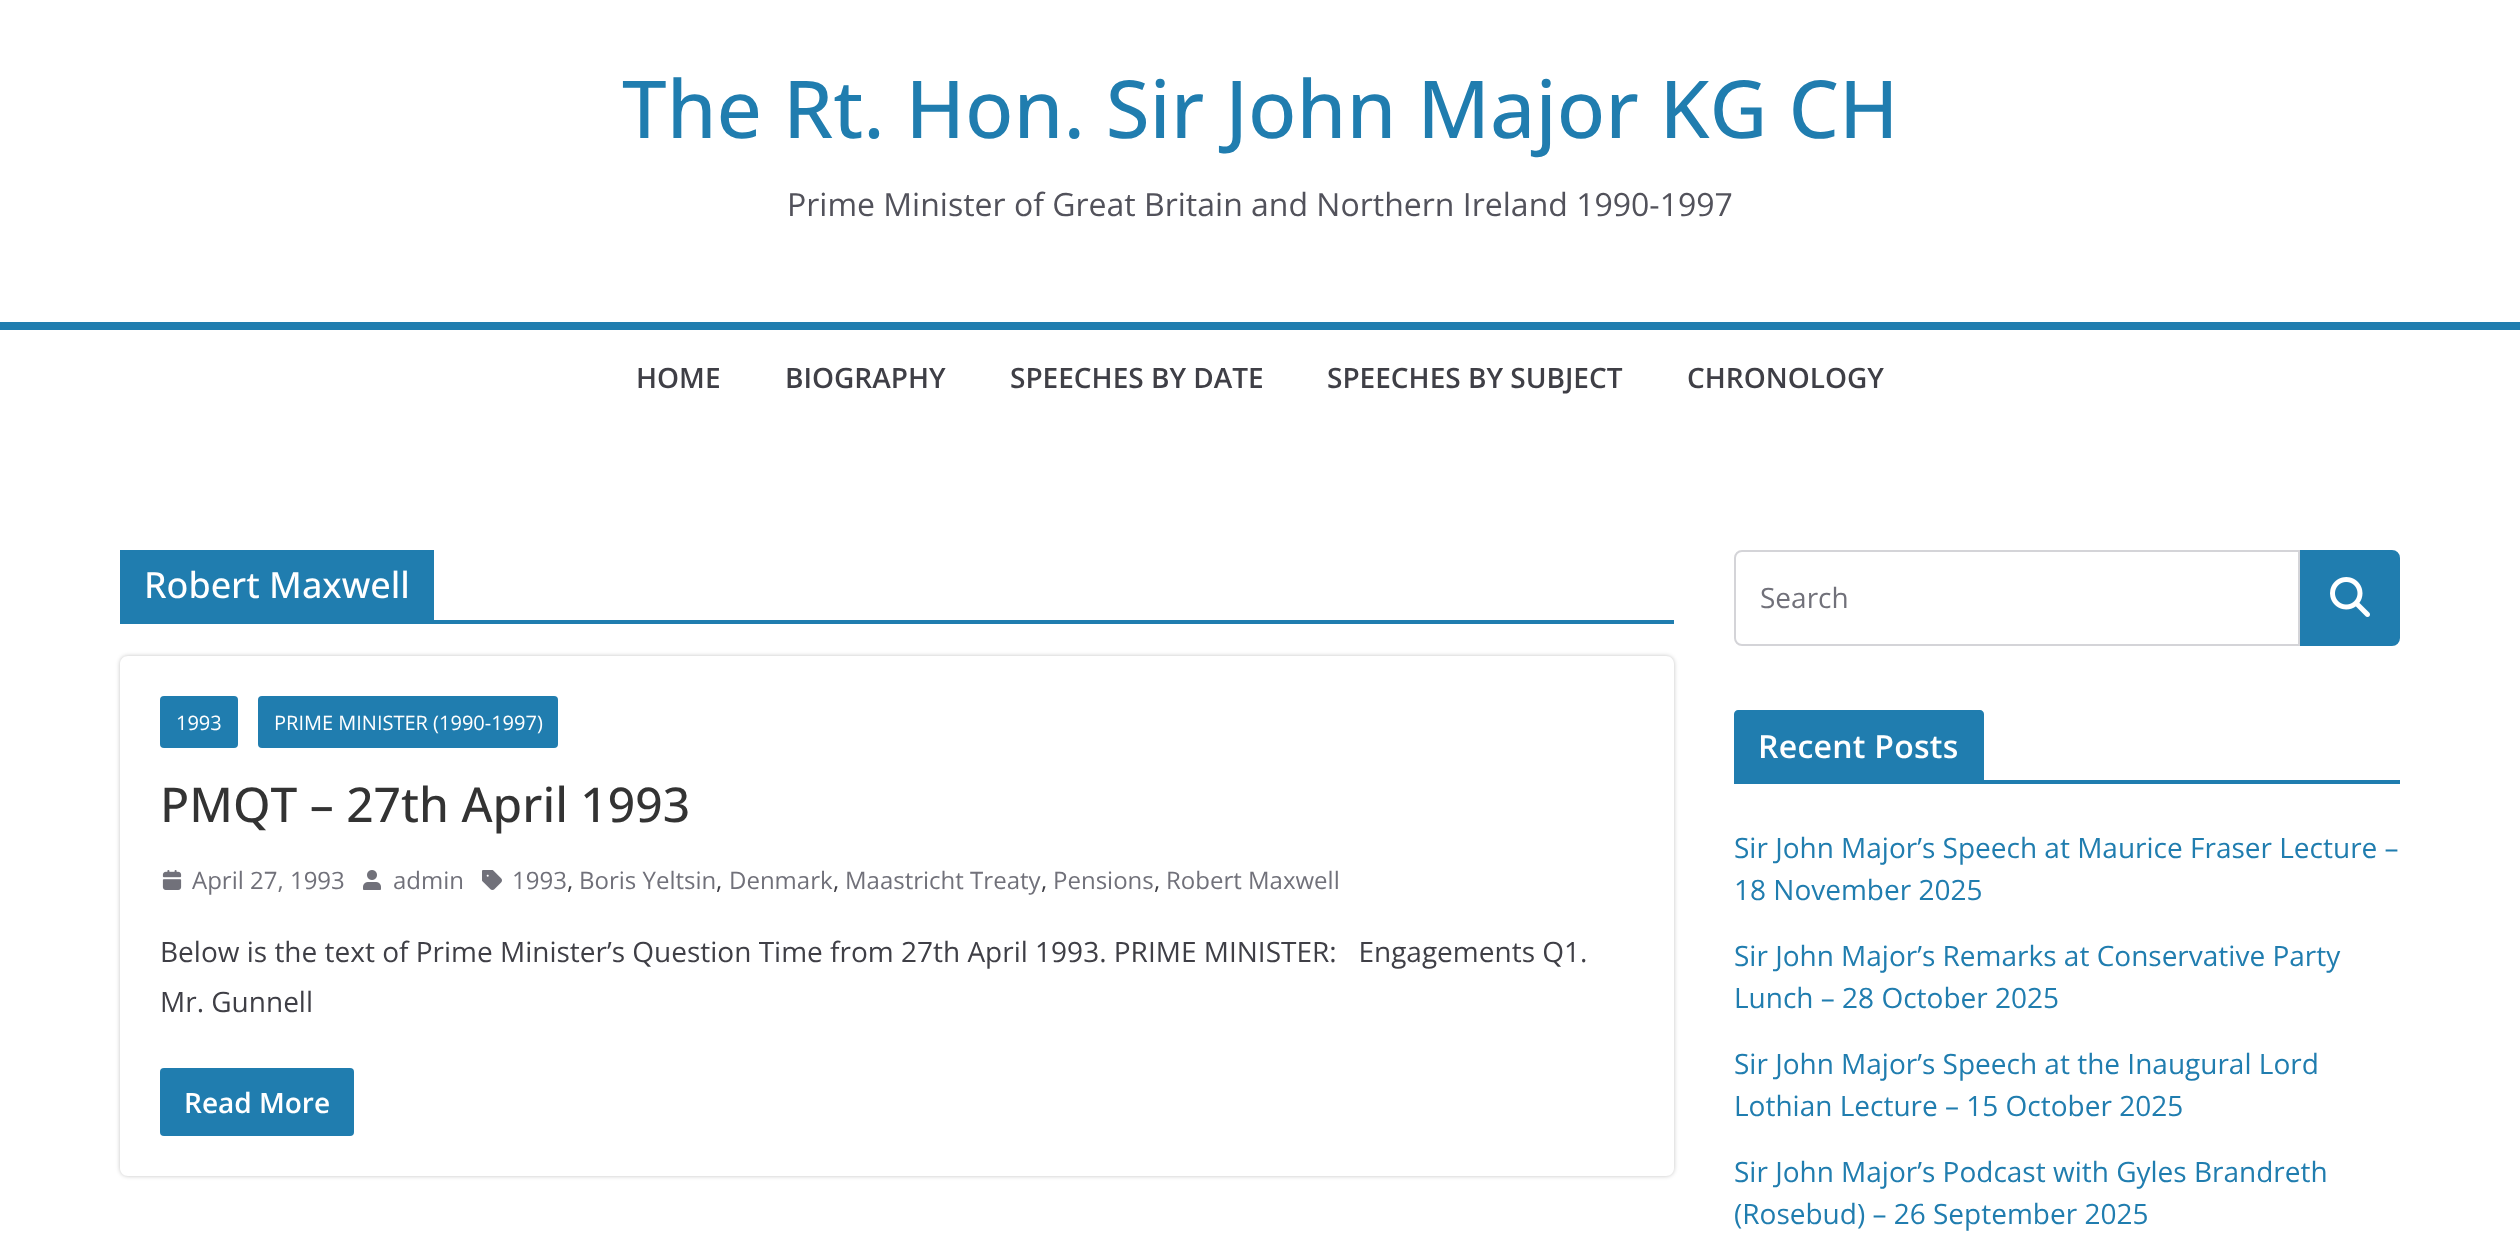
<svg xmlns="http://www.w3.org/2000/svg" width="2520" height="1237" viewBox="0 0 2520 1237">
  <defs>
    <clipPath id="clip1"><path d="M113 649H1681V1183H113ZM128 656H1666C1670.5 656 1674 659.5 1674 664V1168C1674 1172.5 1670.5 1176 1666 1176H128C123.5 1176 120 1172.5 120 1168V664C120 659.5 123.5 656 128 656Z" clip-rule="evenodd"/></clipPath>
  </defs>
  <rect width="100%" height="100%" fill="#fff"/>
  <path d="M0 322h2520v8H0z" fill="#207daf"/>
  <path d="M120 620h1554v4H120z" fill="#207daf"/>
  <path d="M120 550h314v70H120z" fill="#207daf"/>
  <g clip-path="url(#clip1)">
    <rect x="120" y="656" width="1554" height="520" rx="8" fill="#0000003d" filter="blur(2px)"/>
  </g>
  <rect x="160" y="696" width="78" height="52" rx="4" fill="#207daf"/>
  <rect x="258" y="696" width="300" height="52" rx="4" fill="#207daf"/>
  <image x="162" y="870" width="20" height="20" href="img/1.png"/>
  <image x="363" y="870" width="18" height="20" href="img/2.png"/>
  <image x="482" y="870" width="20" height="20" href="img/3.png"/>
  <rect x="160" y="1068" width="194" height="68" rx="4" fill="#207daf"/>
  <path d="M1742 551H2299V645H1742C1738 645 1735 642 1735 638V558C1735 554 1738 551 1742 551Z" fill="none" stroke="#d4d4d8" stroke-width="2"/>
  <path d="M2301 551H2392C2396 551 2399 554 2399 558V638C2399 642 2396 645 2392 645H2301Z" fill="#207daf" stroke="#207daf" stroke-width="2"/>
  <image x="2330" y="577" width="40" height="40" href="img/4.png"/>
  <path d="M1734 780h666v4H1734z" fill="#207daf"/>
  <path d="M1738 710H1980C1982 710 1984 712 1984 714V780H1734V714C1734 712 1736 710 1738 710Z" fill="#207daf"/>
  <text x="622" y="138" font-family="Open Sans" font-size="80" font-weight="500" fill="#207daf">The Rt. Hon. Sir John Major KG CH</text>
  <text x="787" y="216" font-family="Open Sans" font-size="32" fill="#52525b">Prime Minister of Great Britain and Northern Ireland 1990-1997</text>
  <g font-family="Open Sans" font-size="28" font-weight="600" fill="#3f3f46">
    <text x="636" y="388">HOME</text>
    <text x="785" y="388">BIOGRAPHY</text>
    <text x="1010" y="388">SPEECHES BY DATE</text>
    <text x="1327" y="388">SPEECHES BY SUBJECT</text>
    <text x="1687" y="388">CHRONOLOGY</text>
  </g>
  <text x="144" y="598" font-family="Open Sans" font-size="36" font-weight="500" fill="#fff">Robert Maxwell</text>
  <g font-family="Open Sans" font-size="20" fill="#fff">
    <text x="176" y="730">1993</text>
    <text x="274" y="730">PRIME MINISTER (1990-1997)</text>
  </g>
  <text x="160" y="822" font-family="Open Sans" font-size="48" font-weight="500" fill="#333">PMQT – 27th April 1993</text>
  <g font-family="Open Sans" font-size="24" fill="#71717a">
    <text x="192" y="889">April 27, 1993</text>
    <text x="393" y="889">admin</text>
    <text x="512" y="889">1993</text>
  </g>
  <text x="567" y="889" font-family="Open Sans" font-size="24" fill="#3f3f46">,</text>
  <text x="579" y="889" font-family="Open Sans" font-size="24" fill="#71717a">Boris Yeltsin</text>
  <text x="716" y="889" font-family="Open Sans" font-size="24" fill="#3f3f46">,</text>
  <text x="729" y="889" font-family="Open Sans" font-size="24" fill="#71717a">Denmark</text>
  <text x="833" y="889" font-family="Open Sans" font-size="24" fill="#3f3f46">,</text>
  <text x="845" y="889" font-family="Open Sans" font-size="24" fill="#71717a">Maastricht Treaty</text>
  <text x="1041" y="889" font-family="Open Sans" font-size="24" fill="#3f3f46">,</text>
  <text x="1053" y="889" font-family="Open Sans" font-size="24" fill="#71717a">Pensions</text>
  <text x="1154" y="889" font-family="Open Sans" font-size="24" fill="#3f3f46">,</text>
  <text x="1166" y="889" font-family="Open Sans" font-size="24" fill="#71717a">Robert Maxwell</text>
  <g font-family="Open Sans" font-size="28" fill="#3f3f46">
    <text x="160" y="962" xml:space="preserve">Below is the text of Prime Minister’s Question Time from 27th April 1993. PRIME MINISTER:   Engagements Q1.</text>
    <text x="160" y="1012">Mr. Gunnell</text>
  </g>
  <text x="184" y="1113" font-family="Open Sans" font-size="28" font-weight="600" fill="#fff">Read More</text>
  <text x="1760" y="608" font-family="Open Sans" font-size="28" fill="#71717a">Search</text>
  <text x="1758" y="758" font-family="Open Sans" font-size="32" font-weight="600" letter-spacing="0.25" fill="#fff">Recent Posts</text>
  <g font-family="Open Sans" font-size="28" fill="#207daf">
    <text x="1734" y="858">Sir John Major’s Speech at Maurice Fraser Lecture –</text>
    <text x="1734" y="900">18 November 2025</text>
    <text x="1734" y="966">Sir John Major’s Remarks at Conservative Party</text>
    <text x="1734" y="1008">Lunch – 28 October 2025</text>
    <text x="1734" y="1074">Sir John Major’s Speech at the Inaugural Lord</text>
    <text x="1734" y="1116">Lothian Lecture – 15 October 2025</text>
    <text x="1734" y="1182">Sir John Major’s Podcast with Gyles Brandreth</text>
    <text x="1734" y="1224">(Rosebud) – 26 September 2025</text>
  </g>
</svg>
